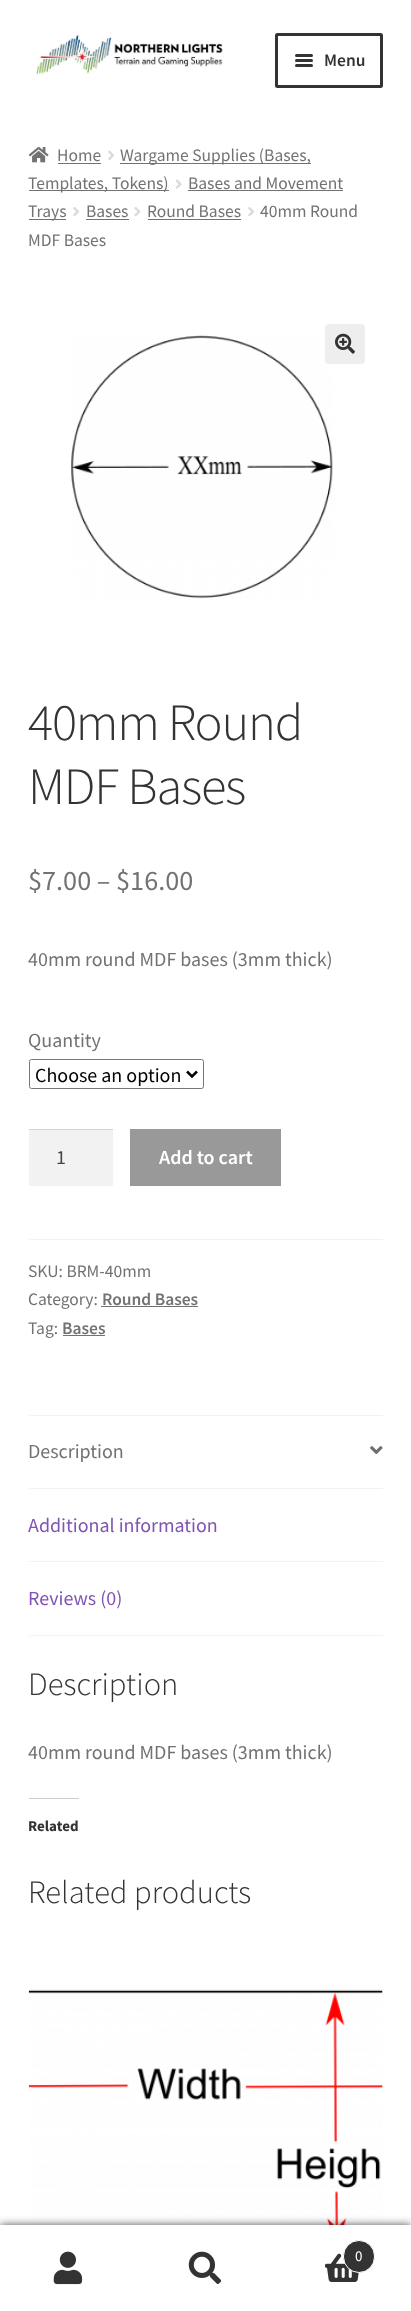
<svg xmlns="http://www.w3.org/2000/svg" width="411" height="2311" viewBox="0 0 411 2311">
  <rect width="100%" height="100%" fill="#fff"/>
  <image x="36" y="34" width="187" height="41" href="img/1.png"/>
  <rect x="276.5" y="34.5" width="105" height="52" rx="1" fill="none" stroke="#333" stroke-width="3"/>
  <rect x="295" y="54" width="18" height="3" rx="1.5" fill="#333"/>
  <rect x="295" y="59" width="18" height="3" rx="1.5" fill="#333"/>
  <rect x="295" y="64" width="18" height="3" rx="1.5" fill="#333"/>
  <image x="28" y="147" width="21" height="16" href="img/2.png"/>
  <path d="M58 163h43v1H58z" fill="#727272"/>
  <image x="108" y="150" width="7" height="10" href="img/3.png"/>
  <path d="M120 163h191v1H120z" fill="#727272"/>
  <path d="M29 190h140v1H29z" fill="#727272"/>
  <image x="175" y="179" width="7" height="10" href="img/4.png"/>
  <path d="M188 190h155v1H188z" fill="#727272"/>
  <path d="M29 219h37v1H29z" fill="#727272"/>
  <image x="73" y="207" width="7" height="10" href="img/5.png"/>
  <path d="M86 219h43v1H86z" fill="#727272"/>
  <image x="134" y="207" width="7" height="10" href="img/6.png"/>
  <path d="M148 219h93v1H148z" fill="#727272"/>
  <image x="248" y="207" width="7" height="10" href="img/5.png"/>
  <image x="71" y="335" width="262" height="264" href="img/7.png"/>
  <rect x="325" y="324" width="40" height="40" rx="4" fill="#eee"/>
  <image x="335" y="333" width="20" height="21" href="img/8.png"/>
  <rect x="29.5" y="1059.5" width="174" height="29" rx="2" fill="none" stroke="#767676"/>
  <path d="M187 1071.5L192 1076.5L197 1071.5" fill="none" stroke="#000" stroke-width="2.5"/>
  <path d="M29 1130h84v56H29z" fill="#f2f2f2"/>
  <path d="M29 1129h84v1H29z" fill="#d4d4d4"/>
  <path d="M130 1129h151v57H130z" fill="#999"/>
  <path d="M29 1239h354v1H29z" fill="#f2f2f2"/>
  <path d="M101 1306h97v1H101z" fill="#727272"/>
  <path d="M63 1335h42v1H63z" fill="#727272"/>
  <path d="M29 1415h354v1H29z" fill="#f2f2f2"/>
  <path d="M29 1488h354v1H29z" fill="#f2f2f2"/>
  <image x="370" y="1446" width="13" height="8" href="img/9.png"/>
  <path d="M29 1561h354v1H29z" fill="#f2f2f2"/>
  <path d="M29 1635h354v1H29z" fill="#f2f2f2"/>
  <path d="M29 1798h50v1H29z" fill="#ccc"/>
  <image x="28" y="1989" width="355" height="236" href="img/10.png"/>
  <path d="M0 2225h411v86H0z" fill="#000000b3" filter="blur(4px)"/>
  <path d="M0 2225h411v1H0z" fill="#fff"/>
  <path d="M0 2226h411v85H0z" fill="#fff"/>
  <image x="53" y="2251" width="30" height="34" href="img/11.png"/>
  <image x="188" y="2251" width="34" height="33" href="img/12.png"/>
  <image x="325" y="2253" width="34" height="29" href="img/13.png"/>
  <rect x="343.5" y="2240.5" width="31" height="32" rx="15.5" fill="#333" stroke="#fff"/>
  <text x="324" y="66" font-family="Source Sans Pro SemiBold" font-size="17.5" font-weight="600" fill="#333">Menu</text>
  <g font-family="Source Sans Pro" font-size="17.5" fill="#727272">
    <text x="57" y="161">Home</text>
    <text x="120" y="161">Wargame Supplies (Bases,</text>
    <text x="28" y="189">Templates, Tokens)</text>
    <text x="188" y="189">Bases and Movement</text>
    <text x="28" y="217">Trays</text>
    <text x="86" y="217">Bases</text>
    <text x="147" y="217">Round Bases</text>
    <text x="260" y="217">40mm Round</text>
    <text x="28" y="246">MDF Bases</text>
  </g>
  <g font-family="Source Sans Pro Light" font-size="52.5" font-weight="300" letter-spacing="-1.25" fill="#333">
    <text x="28" y="740">40mm Round</text>
    <text x="28" y="804">MDF Bases</text>
  </g>
  <text x="28" y="890" font-family="Source Sans Pro" font-size="28.25" fill="#727272">$7.00 – $16.00</text>
  <g font-family="Source Sans Pro" font-size="20" fill="#727272">
    <text x="28" y="966">40mm round MDF bases (3mm thick)</text>
    <text x="28" y="1047">Quantity</text>
  </g>
  <text x="35" y="1082" font-family="Source Sans Pro" font-size="20" fill="#000">Choose an option</text>
  <text x="56" y="1164" font-family="Source Sans Pro" font-size="20" fill="#43454b">1</text>
  <text x="159" y="1164" font-family="Source Sans Pro SemiBold" font-size="20" font-weight="600" fill="#fff">Add to cart</text>
  <g font-family="Source Sans Pro" font-size="17.5" fill="#727272">
    <text x="28" y="1277">SKU: BRM-40mm</text>
    <text x="28" y="1305">Category:</text>
  </g>
  <text x="102" y="1305" font-family="Source Sans Pro SemiBold" font-size="17.5" font-weight="600" fill="#727272">Round Bases</text>
  <text x="28" y="1334" font-family="Source Sans Pro" font-size="17.5" fill="#727272">Tag:</text>
  <text x="62" y="1334" font-family="Source Sans Pro SemiBold" font-size="17.5" font-weight="600" fill="#727272">Bases</text>
  <text x="28" y="1458" font-family="Source Sans Pro" font-size="20" fill="#727272">Description</text>
  <g font-family="Source Sans Pro" font-size="20" fill="#7f54b3">
    <text x="28" y="1532">Additional information</text>
    <text x="28" y="1605">Reviews (0)</text>
  </g>
  <text x="28" y="1695" font-family="Source Sans Pro Light" font-size="32.5" font-weight="300" fill="#333">Description</text>
  <text x="28" y="1759" font-family="Source Sans Pro" font-size="20" fill="#727272">40mm round MDF bases (3mm thick)</text>
  <text x="28" y="1831" font-family="Source Sans Pro" font-size="15" font-weight="bold" fill="#333">Related</text>
  <text x="28" y="1903" font-family="Source Sans Pro Light" font-size="32.5" font-weight="300" fill="#333">Related products</text>
  <text x="355" y="2261" font-family="Source Sans Pro" font-size="15" fill="#fff">0</text>
</svg>
